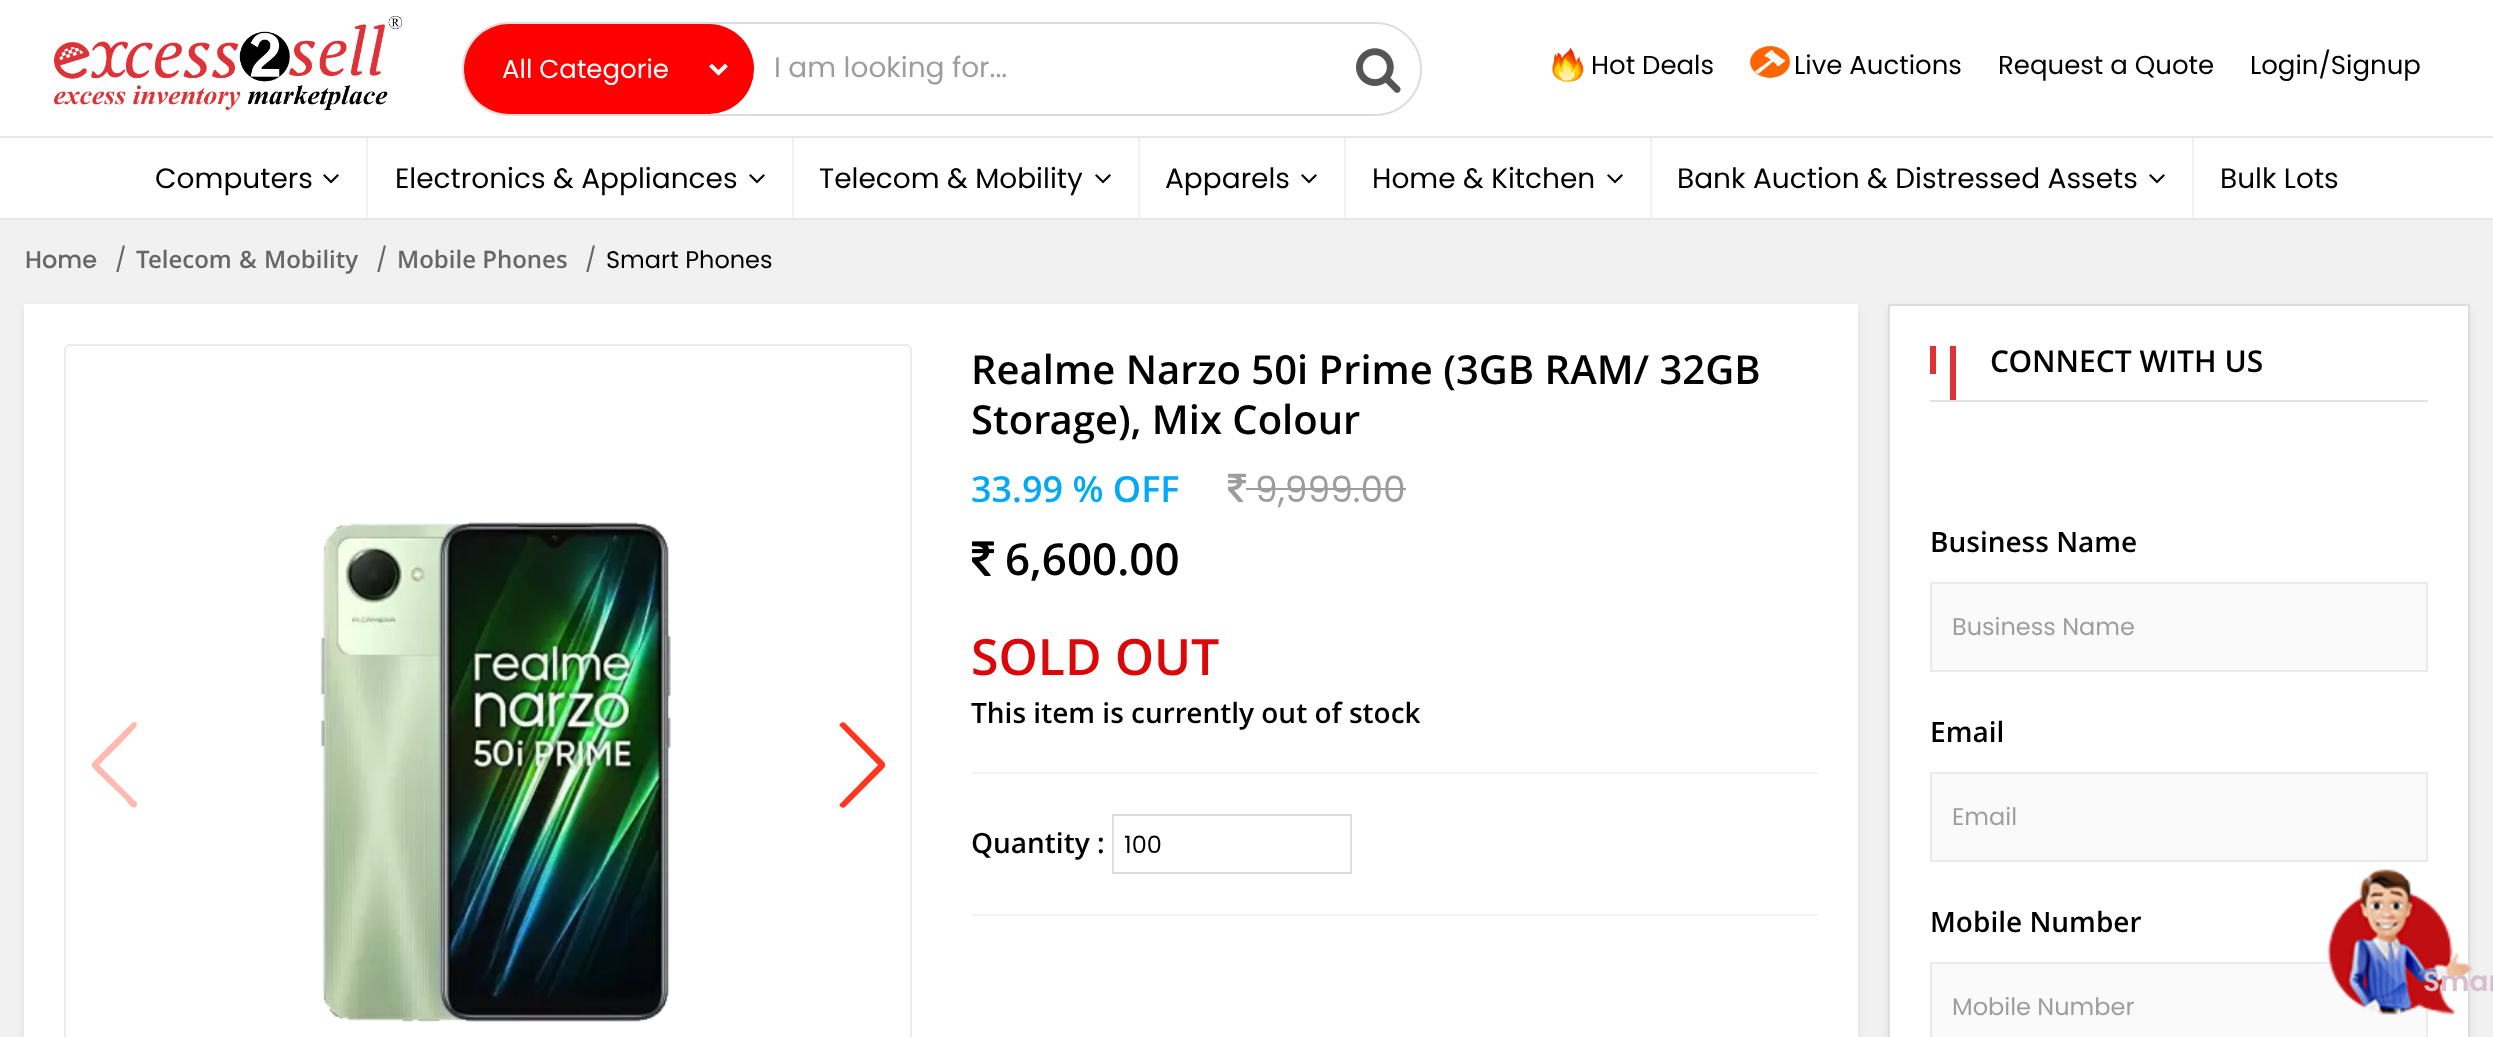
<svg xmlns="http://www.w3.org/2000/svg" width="2493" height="1037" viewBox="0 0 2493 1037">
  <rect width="100%" height="100%" fill="#fff"/>
  <image x="54" y="16" width="348" height="94" href="img/1.png"/>
  <rect x="463" y="23" width="958" height="92" rx="46" fill="none" stroke="#ddd" stroke-width="2"/>
  <rect x="464" y="24" width="290" height="90" rx="45" fill="#fe0000"/>
  <path d="M710.5 65L718.5 73L726.5 65" fill="none" stroke="#fff" stroke-width="4"/>
  <image x="1356" y="48" width="45" height="45" href="img/2.png"/>
  <image x="1552" y="48" width="32" height="34" href="img/3.png"/>
  <image x="1749" y="45" width="41" height="34" href="img/4.png"/>
  <path d="M0 136h2493v2H0z" fill="#e7e7e7"/>
  <path d="M0 218h2493v2H0z" fill="#e7e7e7"/>
  <image x="323" y="174" width="16" height="10" href="img/5.png"/>
  <path d="M366 138h2v80H366z" fill="#f1f1f1"/>
  <image x="749" y="174" width="16" height="10" href="img/5.png"/>
  <path d="M792 138h2v80H792z" fill="#f1f1f1"/>
  <image x="1095" y="174" width="16" height="10" href="img/5.png"/>
  <path d="M1138 138h2v80H1138z" fill="#f1f1f1"/>
  <image x="1301" y="174" width="16" height="10" href="img/5.png"/>
  <path d="M1344 138h2v80H1344z" fill="#f1f1f1"/>
  <image x="1607" y="174" width="16" height="10" href="img/5.png"/>
  <path d="M1650 138h2v80H1650z" fill="#f1f1f1"/>
  <image x="2149" y="174" width="16" height="10" href="img/5.png"/>
  <path d="M2192 138h2v80H2192z" fill="#f1f1f1"/>
  <path d="M0 220h2493v817H0z" fill="#f1f1f1"/>
  <path d="M24 308h1834v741H24z" fill="#00000014" filter="blur(4px)"/>
  <path d="M24 304h1834v733H24z" fill="#fff"/>
  <rect x="65" y="345" width="846" height="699" rx="5" fill="none" stroke="#ebebeb" stroke-width="2"/>
  <path d="M132 723C134 721 137 722 137 725C137 728 103 761 99 765L137 803V805L136 807C132 810 126 801 126 800L100 775C89 764 89 766 100 755Z" fill="#ffb9b1"/>
  <image x="320" y="522" width="351" height="501" href="img/6.png"/>
  <path d="M841 807C839 806 839 804 841 803L878 765L841 727C839 726 839 724 841 723C842 722 844 722 845 723L884 762C885 763 885 764 885 765C885 766 885 767 884 768L845 807C844 808 842 808 841 807Z" fill="#ff3720"/>
  <image x="1228" y="473" width="18" height="29" href="img/7.png"/>
  <path d="M1246 488h160v2H1246z" fill="#9e9d9d"/>
  <image x="972" y="541" width="23" height="35" href="img/8.png"/>
  <path d="M972 772h846v2H972z" fill="#f2f2f2"/>
  <path d="M972 914h846v2H972z" fill="#f2f2f2"/>
  <path d="M1113 815h238v58H1113z" fill="none" stroke="#ddd" stroke-width="2"/>
  <path d="M1888 308h582v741H1888z" fill="#00000014" filter="blur(4px)"/>
  <path d="M1889 305h580v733H1889z" fill="#fff" stroke="#ddd" stroke-width="2"/>
  <path d="M1930 400h498v2H1930z" fill="#e3e3e3"/>
  <path d="M1930 346h6v28H1930z" fill="#dd3338"/>
  <path d="M1950 346h6v54H1950z" fill="#dd3338"/>
  <path d="M1931 583h496v88H1931z" fill="#fafafa" stroke="#eaeaea" stroke-width="2"/>
  <path d="M1931 773h496v88H1931z" fill="#fafafa" stroke="#eaeaea" stroke-width="2"/>
  <path d="M1931 963h496v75H1931z" fill="#fafafa" stroke="#eaeaea" stroke-width="2"/>
  <image x="2327" y="869" width="146" height="146" href="img/9.png"/>
  <text x="502" y="78" font-family="Poppins" font-size="26" fill="#fff">All Categorie</text>
  <text x="774" y="77" font-family="Poppins" font-size="28" fill="#9e9d9d">I am looking for...</text>
  <g font-family="Poppins" font-size="26" fill="#000">
    <text x="1591" y="74">Hot Deals</text>
    <text x="1794" y="74">Live Auctions</text>
    <text x="1998" y="74">Request a Quote</text>
    <text x="2250" y="74">Login/Signup</text>
  </g>
  <g font-family="Poppins" font-size="28" fill="#000">
    <text x="155" y="188">Computers</text>
    <text x="395" y="188">Electronics &amp; Appliances</text>
    <text x="819" y="188">Telecom &amp; Mobility</text>
    <text x="1165" y="188">Apparels</text>
    <text x="1372" y="188">Home &amp; Kitchen</text>
    <text x="1677" y="188">Bank Auction &amp; Distressed Assets</text>
    <text x="2220" y="188">Bulk Lots</text>
  </g>
  <text x="25" y="268" font-family="Poppins" font-size="24" font-weight="500" fill="#666">Home</text>
  <text x="115" y="268" font-family="Poppins" font-size="24" fill="#666">/</text>
  <text x="136" y="268" word-spacing="1" font-family="Open Sans" font-size="24" font-weight="600" fill="#666">Telecom &amp; Mobility</text>
  <text x="376" y="268" font-family="Poppins" font-size="24" fill="#666">/</text>
  <text x="397" y="268" font-family="Open Sans" font-size="24" font-weight="600" fill="#666">Mobile Phones</text>
  <text x="585" y="268" font-family="Poppins" font-size="24" fill="#666">/</text>
  <text x="606" y="268" font-family="Poppins" font-size="24" fill="#000">Smart Phones</text>
  <g font-family="Open Sans" font-size="40" font-weight="600" fill="#000">
    <text x="971" y="384">Realme Narzo 50i Prime (3GB RAM/ 32GB</text>
    <text x="971" y="434">Storage), Mix Colour</text>
  </g>
  <text x="971" y="502" font-family="Open Sans" font-size="36" font-weight="600" fill="#03a9f4">33.99 % OFF</text>
  <text x="1255" y="502" font-family="Poppins" font-size="36" fill="#9e9d9d">9,999.00</text>
  <text x="1005" y="575" font-family="Open Sans" font-size="44" font-weight="600" fill="#000">6,600.00</text>
  <text x="971" y="675" font-family="Open Sans" font-size="50" font-weight="600" fill="#da0808">SOLD OUT</text>
  <g font-family="Open Sans" font-size="28" font-weight="600" fill="#000">
    <text x="971" y="723">This item is currently out of stock</text>
    <text x="971" y="853">Quantity :</text>
  </g>
  <text x="1124" y="853" font-family="Poppins" font-size="24" fill="#000">100</text>
  <text x="1990" y="372" font-family="Open Sans" font-size="30" font-weight="600" fill="#000">CONNECT WITH US</text>
  <text x="1930" y="552" font-family="Open Sans" font-size="28" font-weight="600" fill="#000">Business Name</text>
  <text x="1952" y="635" font-family="Poppins" font-size="24" fill="#9e9d9d">Business Name</text>
  <text x="1930" y="742" font-family="Open Sans" font-size="28" font-weight="600" fill="#000">Email</text>
  <text x="1952" y="825" font-family="Poppins" font-size="24" fill="#9e9d9d">Email</text>
  <text x="1930" y="932" font-family="Open Sans" font-size="28" font-weight="600" fill="#000">Mobile Number</text>
  <text x="1952" y="1015" font-family="Poppins" font-size="24" fill="#9e9d9d">Mobile Number</text>
  <text x="2423" y="991" font-family="Poppins" font-size="28" font-weight="600" fill="#d8bec8">Smar</text>
</svg>
